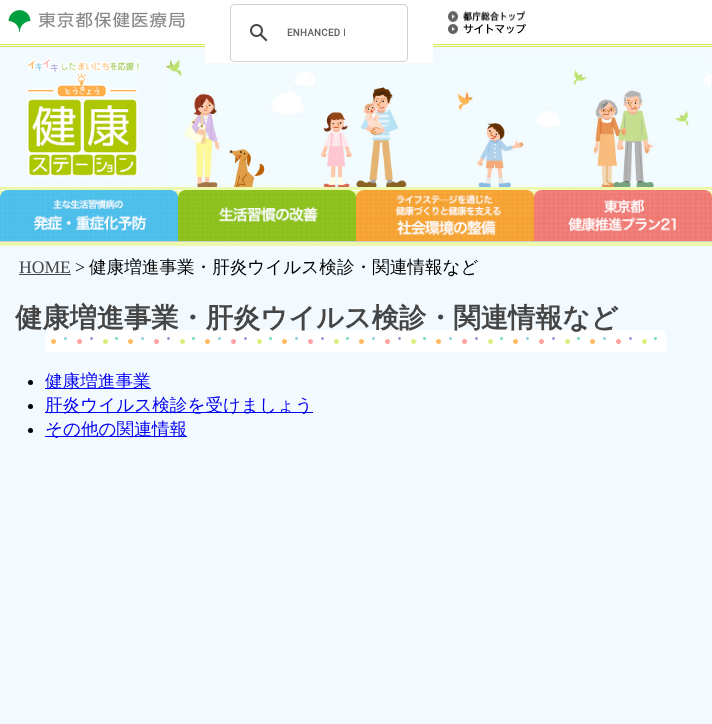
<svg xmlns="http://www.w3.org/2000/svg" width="712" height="724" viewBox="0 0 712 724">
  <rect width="100%" height="100%" fill="#fff"/>
  <image x="0" y="40" width="712" height="7" href="img/1.png"/>
  <image x="0" y="10" width="205" height="34" href="img/2.png"/>
  <path d="M0 47h712v140H0z" fill="#f3faff"/>
  <image x="164" y="58" width="547" height="129" href="img/8.png"/>
  <path d="M205 40h228v23H205z" fill="#fff"/>
  <rect x="230.5" y="4.5" width="177" height="57" rx="3.5" fill="none" stroke="#d2d2d2"/>
  <image x="250" y="24" width="18" height="18" href="img/3.png"/>
  <image x="287" y="28" width="58" height="8" href="img/4.png"/>
  <image x="447" y="10" width="80" height="13" href="img/5.png"/>
  <image x="447" y="23" width="79" height="12" href="img/6.png"/>
  <image x="27" y="58" width="113" height="119" href="img/7.png"/>
  <path d="M0 187h712v59H0z" fill="#ecf8ac"/>
  <image x="0" y="190" width="178" height="51" href="img/9.png"/>
  <path d="M0 241h712v1H0z" fill="#cccdcd"/>
  <image x="178" y="190" width="178" height="51" href="img/10.png"/>
  <image x="356" y="190" width="178" height="51" href="img/11.png"/>
  <image x="534" y="190" width="178" height="51" href="img/12.png"/>
  <path d="M0 246h712v478H0z" fill="#f3faff"/>
  <path d="M19 274h52v1H19z" fill="#454545"/>
  <image x="46" y="330" width="620" height="22" href="img/13.png"/>
  <circle cx="30.5" cy="382.5" r="2.5" fill="#000"/>
  <path d="M45 388h106v1H45z" fill="#00e"/>
  <circle cx="30.5" cy="406.5" r="2.5" fill="#000"/>
  <path d="M45 412h268v1H45z" fill="#00e"/>
  <circle cx="30.5" cy="430.5" r="2.5" fill="#000"/>
  <path d="M45 436h142v1H45z" fill="#00e"/>
  <text x="19" y="273" font-family="Liberation Serif" font-size="17.6" fill="#454545">HOME</text>
  <text x="75" y="273" font-family="Liberation Serif" font-size="17.6" fill="#000">&gt;</text>
  <text x="89" y="273" font-family="WenQuanYi Zen Hei" font-size="17.6" font-weight="500" fill="#000">健康増進事業・肝炎ウイルス検診・関連情報など</text>
  <text x="15" y="327" font-family="WenQuanYi Zen Hei" font-size="27.25" font-weight="bold" fill="#454545">健康増進事業・肝炎ウイルス検診・関連情報など</text>
  <g font-family="WenQuanYi Zen Hei" font-size="17.6" font-weight="500" fill="#00e">
    <text x="45" y="387">健康増進事業</text>
    <text x="45" y="411">肝炎ウイルス検診を受けましょう</text>
    <text x="45" y="435">その他の関連情報</text>
  </g>
</svg>
